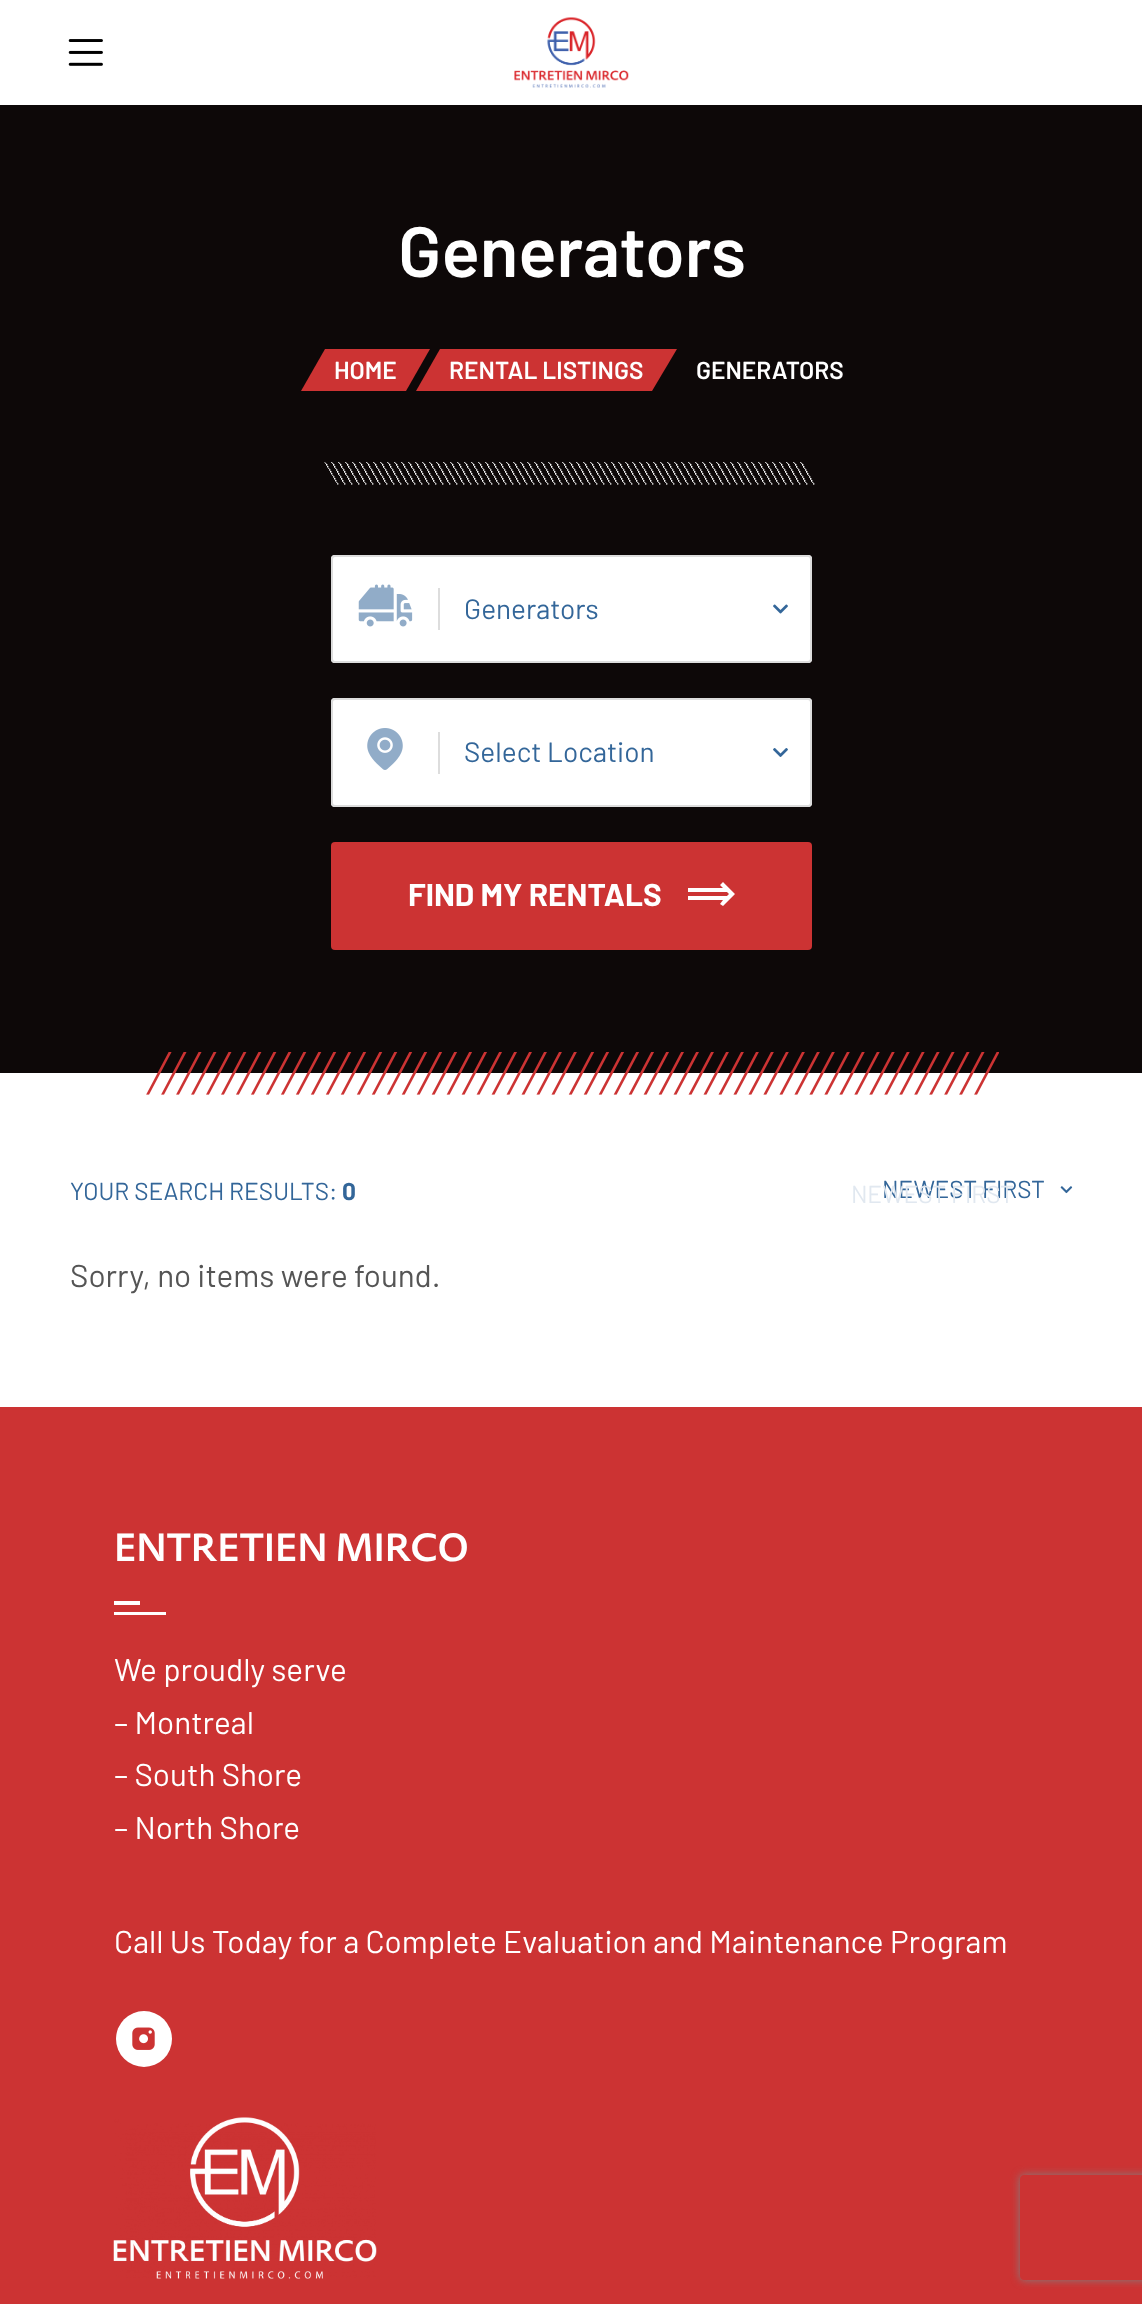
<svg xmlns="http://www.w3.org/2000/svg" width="1142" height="2304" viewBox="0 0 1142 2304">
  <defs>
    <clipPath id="clip1"><path d="M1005 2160H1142V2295H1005ZM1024 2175H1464C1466 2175 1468 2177 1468 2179V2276C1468 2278 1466 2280 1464 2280H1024C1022 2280 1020 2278 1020 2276V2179C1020 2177 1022 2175 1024 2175Z" clip-rule="evenodd"/></clipPath>
  </defs>
  <rect width="100%" height="100%" fill="#fff"/>
  <image x="68" y="39" width="35" height="27" href="img/1.png"/>
  <image x="514" y="17" width="115" height="71" href="img/2.png"/>
  <path d="M0 105h1142v968H0z" fill="#0d0808"/>
  <path d="M325 349H430L406 391H301Z" fill="#c33"/>
  <path d="M440 349H677L652 391H416Z" fill="#c33"/>
  <image x="324" y="462" width="491" height="23" href="img/3.png"/>
  <rect x="331" y="555" width="481" height="108" rx="4" fill="#fff"/>
  <image x="773" y="604" width="15" height="10" href="img/5.png"/>
  <rect x="332" y="556" width="479" height="106" rx="3" fill="none" stroke="#ddd" stroke-width="2"/>
  <image x="358" y="584" width="55" height="43" href="img/4.png"/>
  <path d="M438 588h2v42H438z" fill="#ddd"/>
  <rect x="331" y="698" width="481" height="109" rx="4" fill="#fff"/>
  <image x="773" y="748" width="15" height="9" href="img/7.png"/>
  <rect x="332" y="699" width="479" height="107" rx="3" fill="none" stroke="#ddd" stroke-width="2"/>
  <image x="367" y="728" width="36" height="42" href="img/6.png"/>
  <path d="M438 732h2v42H438z" fill="#ddd"/>
  <rect x="331" y="842" width="481" height="108" rx="4" fill="#c33"/>
  <path d="M723 882L720 885L723 888H688V892H727L729 894L727 896H688V900H723L720 904L723 906L735 894Z" fill="#fff"/>
  <image x="146" y="1052" width="853" height="43" href="img/8.png"/>
  <image x="1060" y="1186" width="13" height="8" href="img/9.png"/>
  <path d="M0 1407h1142v897H0z" fill="#c33"/>
  <path d="M114 1612H166V1615H114ZM114 1601H140V1605H114Z" fill="#fff"/>
  <circle cx="144" cy="2039" r="28" fill="#fff"/>
  <image x="132" y="2027" width="23" height="23" href="img/10.png"/>
  <image x="113" y="2117" width="264" height="162" href="img/11.png"/>
  <g clip-path="url(#clip1)">
    <rect x="1020" y="2175" width="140" height="105" rx="4" fill="#808080" filter="blur(4.5px)"/>
  </g>
  <text x="398" y="277" font-family="Barlow" font-size="71" font-weight="600" fill="#fff">Generators</text>
  <g font-family="Barlow" font-size="24.5" font-weight="600" fill="#fff">
    <text x="334" y="379">HOME</text>
    <text x="449" y="379">RENTAL LISTINGS</text>
    <text x="696" y="379">GENERATORS</text>
  </g>
  <g font-family="Barlow" font-size="28" fill="#369">
    <text x="464" y="619">Generators</text>
    <text x="464" y="762">Select Location</text>
  </g>
  <text x="408" y="906" font-family="Barlow" font-size="31.5" font-weight="bold" fill="#fff">FIND MY RENTALS</text>
  <text x="70" y="1200" font-family="Barlow" font-size="24.5" fill="#369">YOUR SEARCH RESULTS:</text>
  <text x="342" y="1200" font-family="Barlow" font-size="24.5" font-weight="bold" fill="#369">0</text>
  <text x="882" y="1198" font-family="Barlow" font-size="24.5" fill="#369">NEWEST FIRST</text>
  <text x="851" y="1203" font-family="Barlow" font-size="24.5" fill="#e1e8f0">NEWEST FIRST</text>
  <text x="70" y="1287" font-family="Barlow" font-size="31.5" fill="#555">Sorry, no items were found.</text>
  <text x="114" y="1561" font-family="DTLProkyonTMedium" font-size="38.5" font-weight="500" fill="#fff">ENTRETIEN MIRCO</text>
  <g font-family="Barlow" font-size="31.5" fill="#fff">
    <text x="114" y="1681">We proudly serve</text>
    <text x="114" y="1734">– Montreal</text>
    <text x="114" y="1786">– South Shore</text>
    <text x="114" y="1839">– North Shore</text>
    <text x="114" y="1953">Call Us Today for a Complete Evaluation and Maintenance Program</text>
  </g>
</svg>
